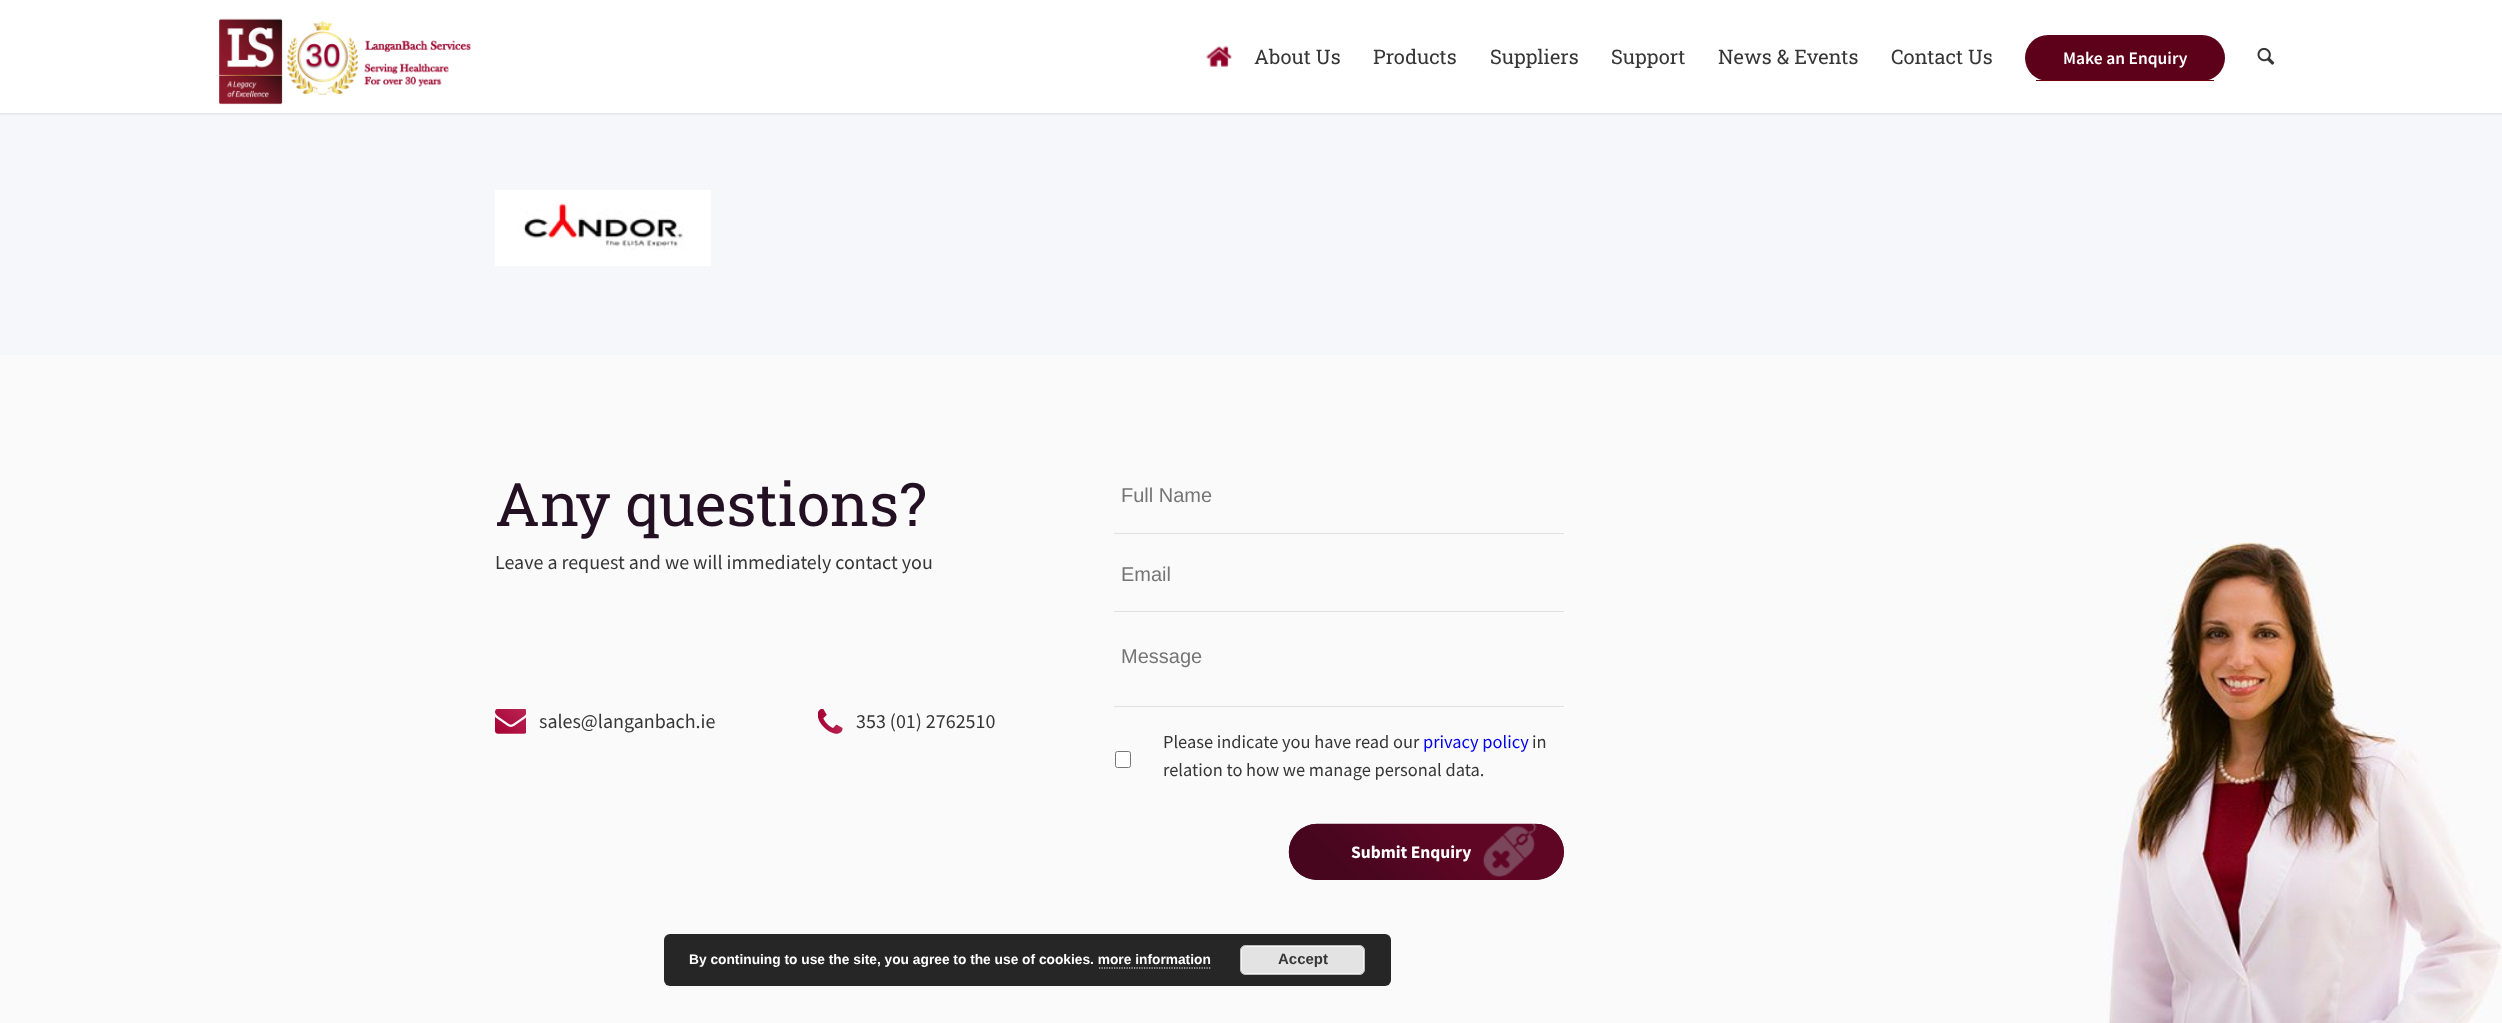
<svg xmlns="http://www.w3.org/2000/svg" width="2502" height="1023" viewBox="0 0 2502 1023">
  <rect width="100%" height="100%" fill="#fafafb"/>
  <path d="M0 113h2502v242H0z" fill="#f6f7fa"/>
  <path d="M-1 -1h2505v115H-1z" fill="#0000001a" filter="blur(1px)"/>
  <path d="M0 0h2502v113H0z" fill="#fff"/>
  <image x="219" y="18" width="252" height="87" href="img/1.png"/>
  <image x="1205" y="45" width="27" height="22" href="img/2.png"/>
  <rect x="2025" y="35" width="200" height="46" rx="23" fill="#5d001a"/>
  <path d="M2036 80h178v1H2036z" fill="#700007"/>
  <image x="2257" y="47" width="18" height="18" href="img/3.png"/>
  <image x="495" y="190" width="216" height="76" href="img/4.png"/>
  <image x="2108" y="542" width="394" height="481" href="img/5.png"/>
  <image x="495" y="709" width="31" height="25" href="img/6.png"/>
  <image x="818" y="709" width="25" height="25" href="img/7.png"/>
  <path d="M1114 533h450v1H1114z" fill="#e1e1e2"/>
  <path d="M1114 611h450v1H1114z" fill="#e1e1e2"/>
  <path d="M1114 706h450v1H1114z" fill="#e1e1e2"/>
  <rect x="1115.5" y="751.5" width="15" height="16" rx="2" fill="#fff" stroke="#767676"/>
  <rect x="1289" y="824" width="275" height="56" rx="28" fill="#47061e"/>
  <image x="1288" y="823" width="276" height="57" href="img/8.png"/>
  <rect x="664" y="934" width="727" height="52" rx="6" fill="#262626"/>
  <rect x="1240" y="945" width="125" height="30" rx="6" fill="#e3e3e3"/>
  <rect x="1241.5" y="946.5" width="122" height="27" rx="4.5" fill="none" stroke="#f6f6f6"/>
  <rect x="1240.5" y="945.5" width="124" height="29" rx="5.5" fill="none" stroke="#bbb"/>
  <path d="M1099 968H1211" fill="none" stroke="#fff" stroke-width="1.2" stroke-dasharray="1.25 1.25"/>
  <g font-family="Roboto Slab" font-size="20" fill="#363636">
    <text x="1254" y="64">About Us</text>
    <text x="1373" y="64">Products</text>
    <text x="1490" y="64">Suppliers</text>
    <text x="1611" y="64">Support</text>
    <text x="1718" y="64">News &amp; Events</text>
    <text x="1891" y="64">Contact Us</text>
  </g>
  <text x="2063" y="64" font-family="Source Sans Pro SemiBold" font-size="17.5" font-weight="600" fill="#fff">Make an Enquiry</text>
  <text x="495" y="526" font-family="Roboto Slab" font-size="60" fill="#231123">Any questions?</text>
  <g font-family="Source Sans Pro" font-size="20" fill="#363636">
    <text x="495" y="569">Leave a request and we will immediately contact you</text>
    <text x="539" y="728">sales@langanbach.ie</text>
    <text x="856" y="728">353 (01) 2762510</text>
  </g>
  <g font-family="Liberation Sans" font-size="20" fill="#757575">
    <text x="1121" y="502">Full Name</text>
    <text x="1121" y="581">Email</text>
    <text x="1121" y="663">Message</text>
  </g>
  <text x="1163" y="748" font-family="Source Sans Pro" font-size="18.4" fill="#363636">Please indicate you have read our</text>
  <text x="1423" y="748" font-family="Source Sans Pro" font-size="18.4" fill="#00e">privacy policy</text>
  <g font-family="Source Sans Pro" font-size="18.4" fill="#363636">
    <text x="1532" y="748">in</text>
    <text x="1163" y="776">relation to how we manage personal data.</text>
  </g>
  <text x="1351" y="858" font-family="Source Sans Pro" font-size="17.5" font-weight="bold" fill="#fff">Submit Enquiry</text>
  <text x="689" y="964" font-family="Liberation Sans" font-size="13.75" font-weight="bold" fill="#fff">By continuing to use the site, you agree to the use of cookies. more information</text>
  <text x="1278" y="964" font-family="Liberation Sans" font-size="15" font-weight="bold" fill="#363636">Accept</text>
</svg>
